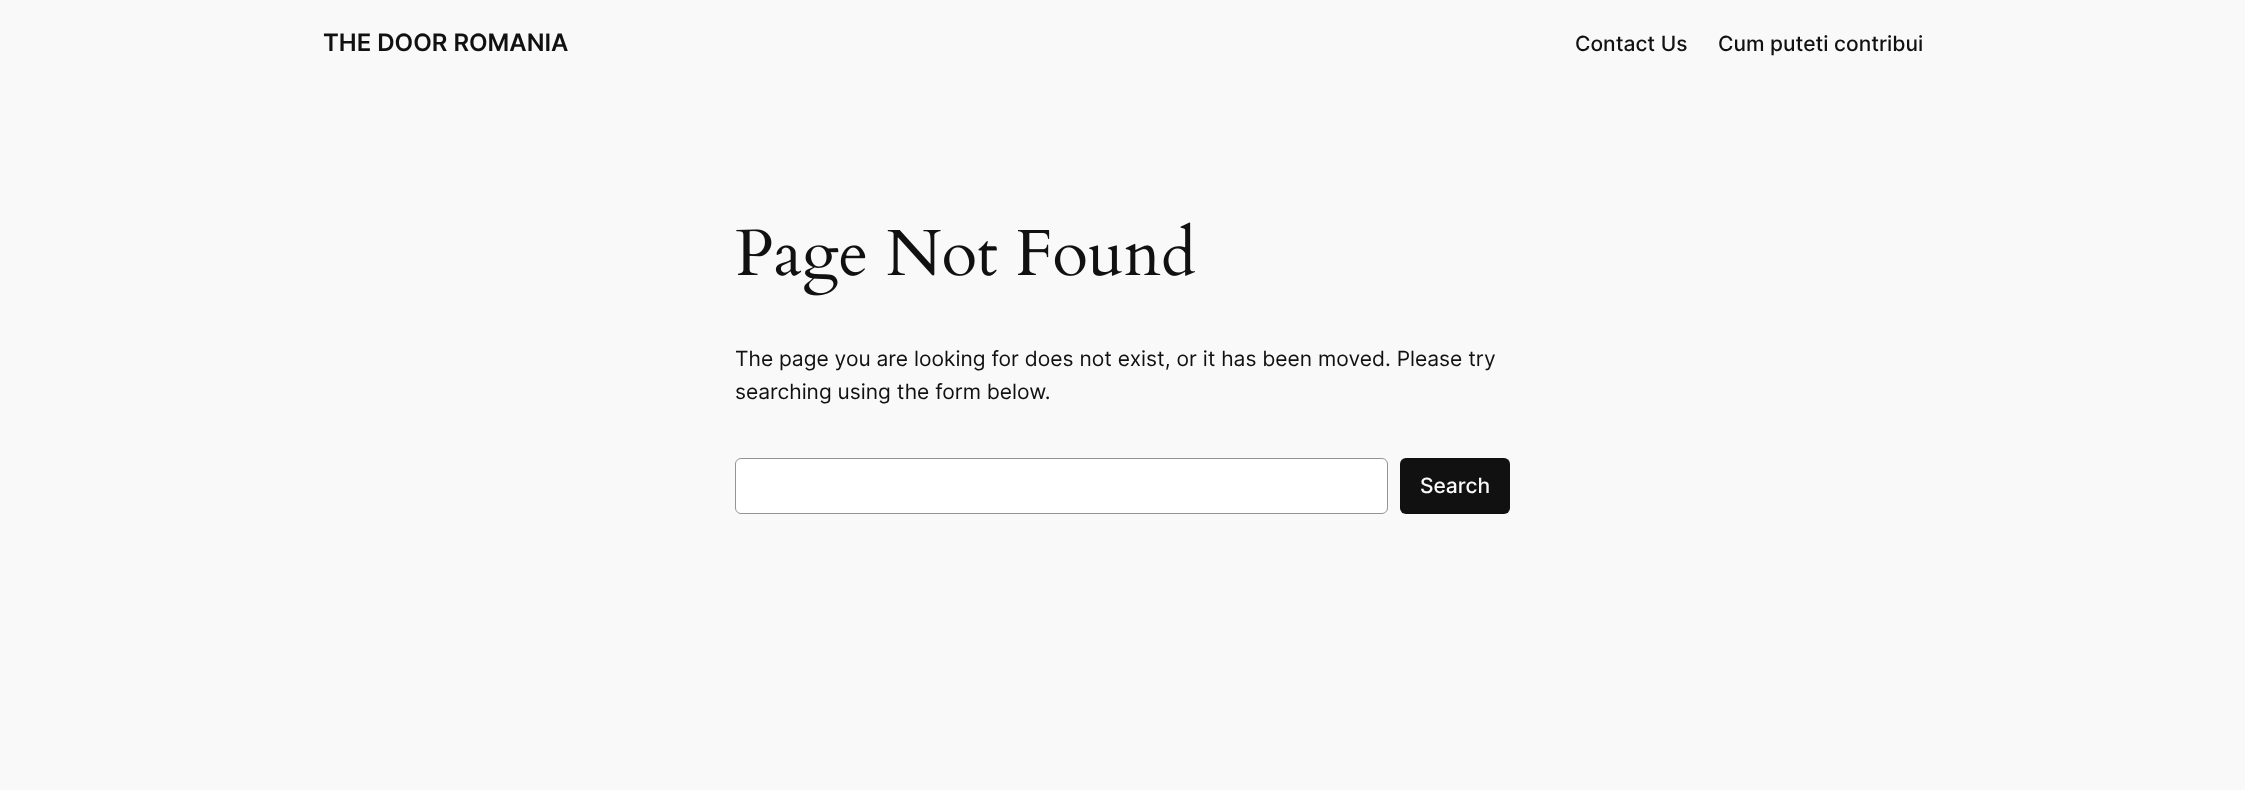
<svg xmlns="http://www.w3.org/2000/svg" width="2245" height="790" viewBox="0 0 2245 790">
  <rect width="100%" height="100%" fill="#f9f9f9"/>
  <image x="736" y="222" width="459" height="74" href="img/1.png"/>
  <rect x="735.5" y="458.5" width="652" height="55" rx="5.5" fill="#fff" stroke="#949494"/>
  <rect x="1400" y="458" width="110" height="56" rx="6" fill="#111"/>
  <text x="323" y="51" font-family="Inter" font-size="24" font-weight="600" fill="#111">THE DOOR ROMANIA</text>
  <g font-family="Inter" font-size="21" font-weight="500" fill="#111">
    <text x="1575" y="51">Contact Us</text>
    <text x="1718" y="51">Cum puteti contribui</text>
  </g>
  <g font-family="Inter" font-size="21" fill="#111">
    <text x="735" y="366">The page you are looking for does not exist, or it has been moved. Please try</text>
    <text x="735" y="399">searching using the form below.</text>
  </g>
  <text x="1420" y="493" font-family="Inter" font-size="21" font-weight="500" fill="#f9f9f9">Search</text>
</svg>
